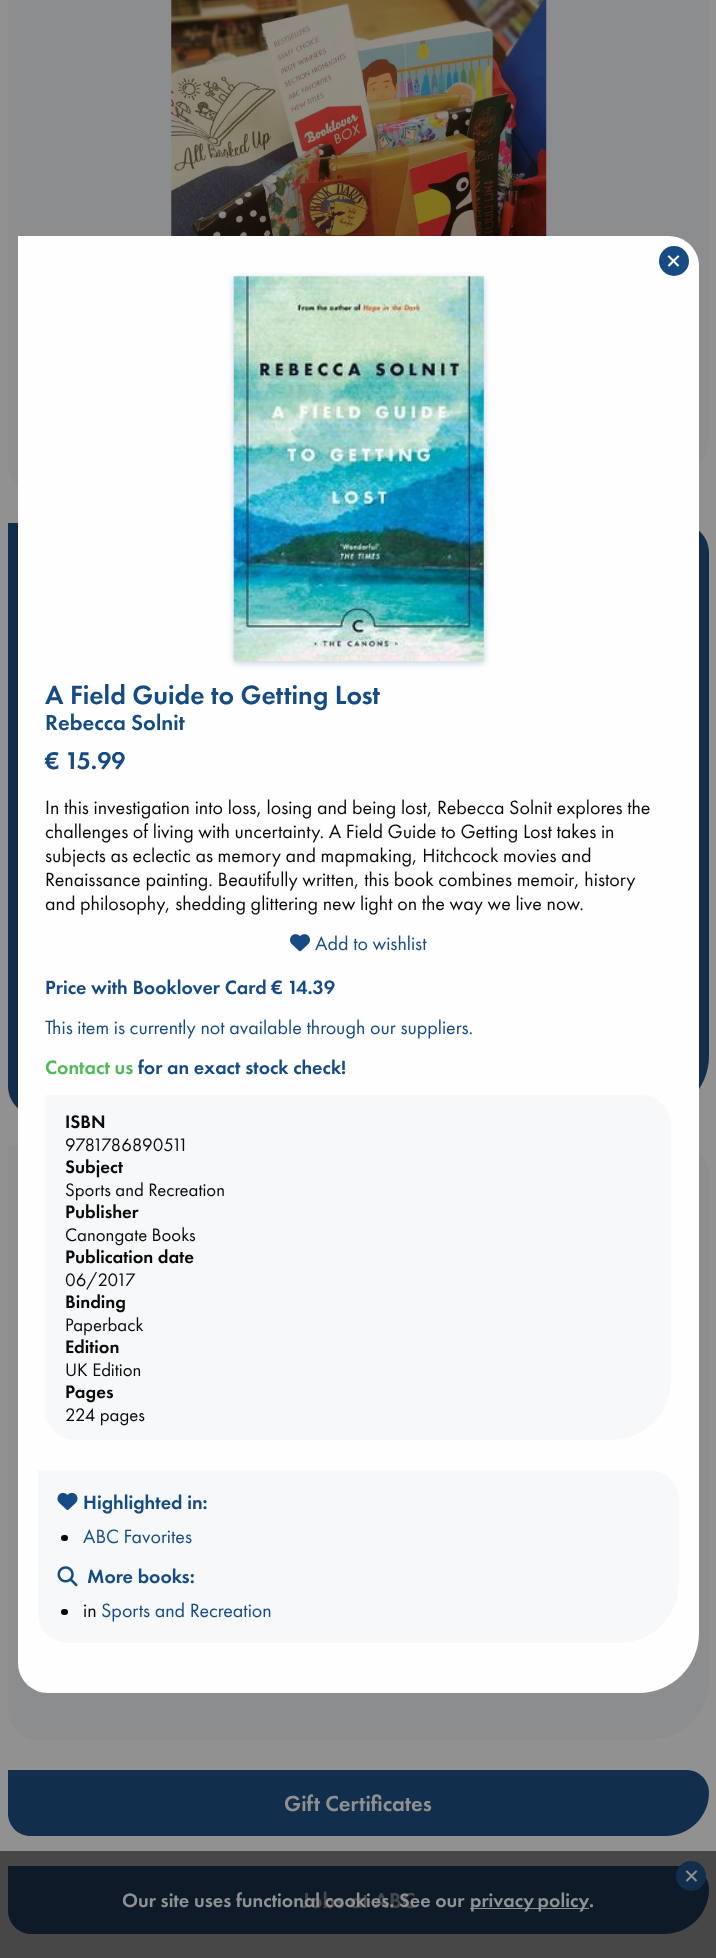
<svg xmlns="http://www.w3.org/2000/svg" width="716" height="1958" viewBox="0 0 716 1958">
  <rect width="100%" height="100%" fill="#919191"/>
  <path d="M0 1851h716v107H0z" fill="#474747"/>
  <path d="M8-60H679C695.5-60 709-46.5 709-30V433C709 466 682 493 649 493H38C21.5 493 8 479.5 8 463Z" fill="#8c8d8e"/>
  <image x="171" y="0" width="376" height="236" href="img/1.png"/>
  <path d="M8 523H679C695.5 523 709 536.5 709 553V1056C709 1089 682 1116 649 1116H38C21.5 1116 8 1102.5 8 1086Z" fill="#112e4d"/>
  <path d="M8 1146H679C695.5 1146 709 1159.5 709 1176V1680C709 1713 682 1740 649 1740H38C21.5 1740 8 1726.5 8 1710Z" fill="#8c8d8e"/>
  <path d="M18 236H669C685.5 236 699 249.5 699 266V1633C699 1666 672 1693 639 1693H48C31.5 1693 18 1679.5 18 1663Z" fill="#fefefe"/>
  <circle cx="674" cy="261" r="15" fill="#164c83"/>
  <path d="M234 278h250v385H234z" fill="#16438340" filter="blur(3px)"/>
  <image x="233" y="276" width="251" height="386" href="img/2.png"/>
  <image x="290" y="934" width="20" height="18" href="img/3.png"/>
  <path d="M45 1095H641C657.5 1095 671 1108.5 671 1125V1380C671 1413 644 1440 611 1440H75C58.5 1440 45 1426.5 45 1410Z" fill="#f6f8fa"/>
  <path d="M38 1470H649C665.5 1470 679 1483.5 679 1500V1583C679 1616 652 1643 619 1643H68C51.5 1643 38 1629.5 38 1613Z" fill="#f6f8fa"/>
  <image x="57" y="1492" width="21" height="18" href="img/4.png"/>
  <rect x="61" y="1535" width="7" height="6" rx="3" fill="#0a0a0a"/>
  <image x="57" y="1566" width="21" height="21" href="img/5.png"/>
  <rect x="61" y="1609" width="7" height="6" rx="3" fill="#0a0a0a"/>
  <path d="M8 1770H686.5C699 1770 709 1780 709 1792.5C709 1816.5 689.5 1836 665.5 1836H30.5C18 1836 8 1826 8 1813.5Z" fill="#112e4d"/>
  <path d="M8 1866H686C698.5 1866 709 1876.5 709 1889C709 1914 689 1934 664 1934H31C18.5 1934 8 1923.5 8 1911Z" fill="#0d1b28"/>
  <circle cx="691" cy="1876" r="15" fill="#112e4d"/>
  <path d="M470 1908h119v1H470z" fill="#909090"/>
  <text x="666" y="271" font-family="Futura PT" font-size="30" fill="#fff">×</text>
  <text x="45" y="704" font-family="Futura PT" font-size="27.5" font-weight="500" fill="#164c83">A Field Guide to Getting Lost</text>
  <text x="45" y="730" font-family="Futura PT" font-size="22.5" font-weight="500" fill="#164c83">Rebecca Solnit</text>
  <text x="45" y="769" font-family="Futura PT" font-size="25" font-weight="500" fill="#164c83">€ 15.99</text>
  <g font-family="Futura PT" font-size="20" fill="#0a0a0a">
    <text x="45" y="814">In this investigation into loss, losing and being lost, Rebecca Solnit explores the</text>
    <text x="45" y="838">challenges of living with uncertainty. A Field Guide to Getting Lost takes in</text>
    <text x="45" y="862">subjects as eclectic as memory and mapmaking, Hitchcock movies and</text>
    <text x="45" y="886">Renaissance painting. Beautifully written, this book combines memoir, history</text>
    <text x="45" y="910">and philosophy, shedding glittering new light on the way we live now.</text>
  </g>
  <text x="315" y="950" font-family="Futura PT" font-size="20" fill="#164c83">Add to wishlist</text>
  <text x="45" y="994" font-family="Futura PT" font-size="20" font-weight="500" fill="#164c83">Price with Booklover Card € 14.39</text>
  <text x="45" y="1034" font-family="Futura PT" font-size="20" fill="#164c83">This item is currently not available through our suppliers.</text>
  <text x="45" y="1074" font-family="Futura PT" font-size="20" font-weight="500" fill="#50b95a">Contact us</text>
  <text x="138" y="1074" font-family="Futura PT" font-size="20" font-weight="500" fill="#164c83">for an exact stock check!</text>
  <text x="65" y="1128" font-family="Futura PT" font-size="18.75" font-weight="500" fill="#0a0a0a">ISBN</text>
  <text x="65" y="1151" font-family="Futura PT" font-size="18.75" fill="#0a0a0a">9781786890511</text>
  <text x="65" y="1173" font-family="Futura PT" font-size="18.75" font-weight="500" fill="#0a0a0a">Subject</text>
  <text x="65" y="1196" font-family="Futura PT" font-size="18.75" fill="#0a0a0a">Sports and Recreation</text>
  <text x="65" y="1218" font-family="Futura PT" font-size="18.75" font-weight="500" fill="#0a0a0a">Publisher</text>
  <text x="65" y="1241" font-family="Futura PT" font-size="18.75" fill="#0a0a0a">Canongate Books</text>
  <text x="65" y="1263" font-family="Futura PT" font-size="18.75" font-weight="500" fill="#0a0a0a">Publication date</text>
  <text x="65" y="1286" font-family="Futura PT" font-size="18.75" fill="#0a0a0a">06/2017</text>
  <text x="65" y="1308" font-family="Futura PT" font-size="18.75" font-weight="500" fill="#0a0a0a">Binding</text>
  <text x="65" y="1331" font-family="Futura PT" font-size="18.75" fill="#0a0a0a">Paperback</text>
  <text x="65" y="1353" font-family="Futura PT" font-size="18.75" font-weight="500" fill="#0a0a0a">Edition</text>
  <text x="65" y="1376" font-family="Futura PT" font-size="18.75" fill="#0a0a0a">UK Edition</text>
  <text x="65" y="1398" font-family="Futura PT" font-size="18.75" font-weight="500" fill="#0a0a0a">Pages</text>
  <text x="65" y="1421" font-family="Futura PT" font-size="18.75" fill="#0a0a0a">224 pages</text>
  <text x="83" y="1509" font-family="Futura PT" font-size="20" font-weight="500" fill="#164c83">Highlighted in:</text>
  <text x="83" y="1543" font-family="Futura PT" font-size="20" fill="#164c83">ABC Favorites</text>
  <text x="87" y="1583" font-family="Futura PT" font-size="20" font-weight="500" fill="#164c83">More books:</text>
  <text x="83" y="1617" font-family="Futura PT" font-size="20" fill="#0a0a0a">in</text>
  <text x="101" y="1617" font-family="Futura PT" font-size="20" fill="#164c83">Sports and Recreation</text>
  <text x="284" y="1811" font-family="Futura PT" font-size="22.5" font-weight="500" fill="#909090">Gift Certificates</text>
  <text x="301" y="1908" font-family="Futura PT" font-size="22.5" font-weight="500" fill="#474747">Jobs at ABC</text>
  <text x="684" y="1886" font-family="Futura PT" font-size="30" fill="#909090">×</text>
  <g font-family="Futura PT" font-size="20" font-weight="500" fill="#909090">
    <text x="122" y="1907">Our site uses functional cookies. See our</text>
    <text x="470" y="1907" word-spacing="-1">privacy policy</text>
    <text x="589" y="1907">.</text>
  </g>
</svg>
